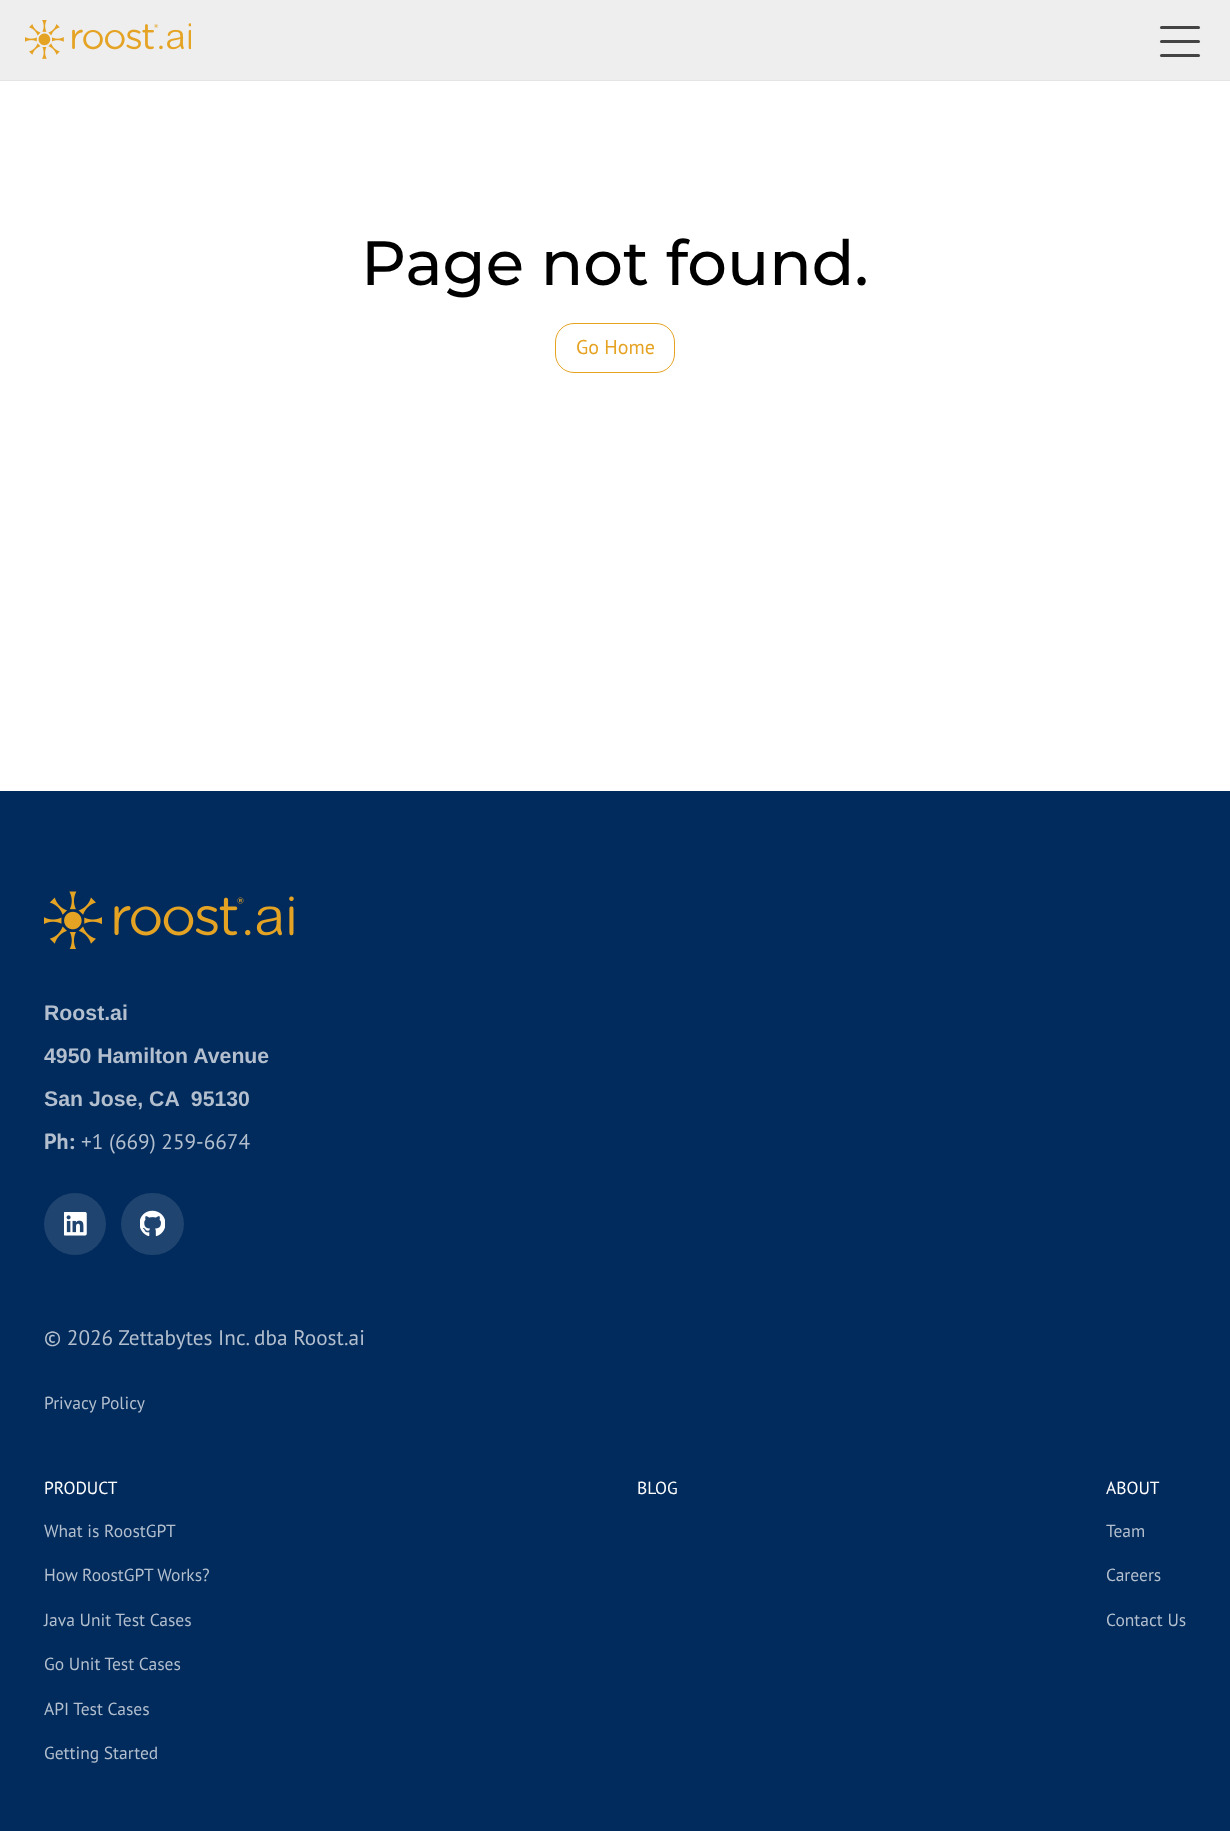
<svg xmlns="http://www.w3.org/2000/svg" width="1230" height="1831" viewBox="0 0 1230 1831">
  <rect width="100%" height="100%" fill="#fff"/>
  <path d="M0 80h1230v1H0z" fill="#e5e4e5"/>
  <path d="M0 0h1230v80H0z" fill="#eee"/>
  <image x="25" y="20" width="166" height="39" href="img/1.png"/>
  <rect x="1160" y="26" width="40" height="3" rx="1.5" fill="#444"/>
  <rect x="1160" y="40" width="40" height="3" rx="1.5" fill="#444"/>
  <rect x="1160" y="54" width="40" height="3" rx="1.5" fill="#444"/>
  <rect x="555.5" y="323.5" width="119" height="49" rx="18.5" fill="none" stroke="#e6a323"/>
  <path d="M0 791h1230v1040H0z" fill="#002b5c"/>
  <image x="44" y="891" width="250" height="58" href="img/2.png"/>
  <circle cx="75" cy="1224" r="31" fill="#1f4470"/>
  <image x="64" y="1212" width="23" height="24" href="img/3.png"/>
  <rect x="121" y="1193" width="63" height="62" rx="31" fill="#1f4470"/>
  <image x="140" y="1210" width="25" height="27" href="img/4.png"/>
  <text x="361" y="285" font-family="Montserrat" font-size="62.5" font-weight="500" fill="#000">Page not found.</text>
  <text x="576" y="354" font-family="PT Sans" font-size="20" fill="#e6a323">Go Home</text>
  <g font-family="Liberation Sans" font-size="21.25" font-weight="bold" fill="#b3bfce">
    <text x="44" y="1020">Roost.ai</text>
    <text x="44" y="1063">4950 Hamilton Avenue</text>
    <text x="44" y="1106" xml:space="preserve">San Jose, CA  95130</text>
  </g>
  <text x="44" y="1149" font-family="PT Sans" font-size="22" font-weight="bold" fill="#b3bfce">Ph:</text>
  <g font-family="PT Sans" font-size="21.25" fill="#b3bfce">
    <text x="81" y="1149">+1 (669) 259-6674</text>
    <text x="44" y="1345">© 2026 Zettabytes Inc. dba Roost.ai</text>
  </g>
  <text x="44" y="1409" font-family="PT Sans" font-size="17.5" fill="#b3bfce">Privacy Policy</text>
  <text x="44" y="1494" font-family="PT Sans" font-size="17.5" fill="#fff">PRODUCT</text>
  <g font-family="PT Sans" font-size="17.5" fill="#b3bfce">
    <text x="44" y="1537">What is RoostGPT</text>
    <text x="44" y="1581">How RoostGPT Works?</text>
    <text x="44" y="1626">Java Unit Test Cases</text>
    <text x="44" y="1670">Go Unit Test Cases</text>
    <text x="44" y="1715">API Test Cases</text>
    <text x="44" y="1759">Getting Started</text>
  </g>
  <g font-family="PT Sans" font-size="17.5" fill="#fff">
    <text x="637" y="1494">BLOG</text>
    <text x="1106" y="1494">ABOUT</text>
  </g>
  <g font-family="PT Sans" font-size="17.5" fill="#b3bfce">
    <text x="1106" y="1537">Team</text>
    <text x="1106" y="1581">Careers</text>
    <text x="1106" y="1626">Contact Us</text>
  </g>
</svg>
